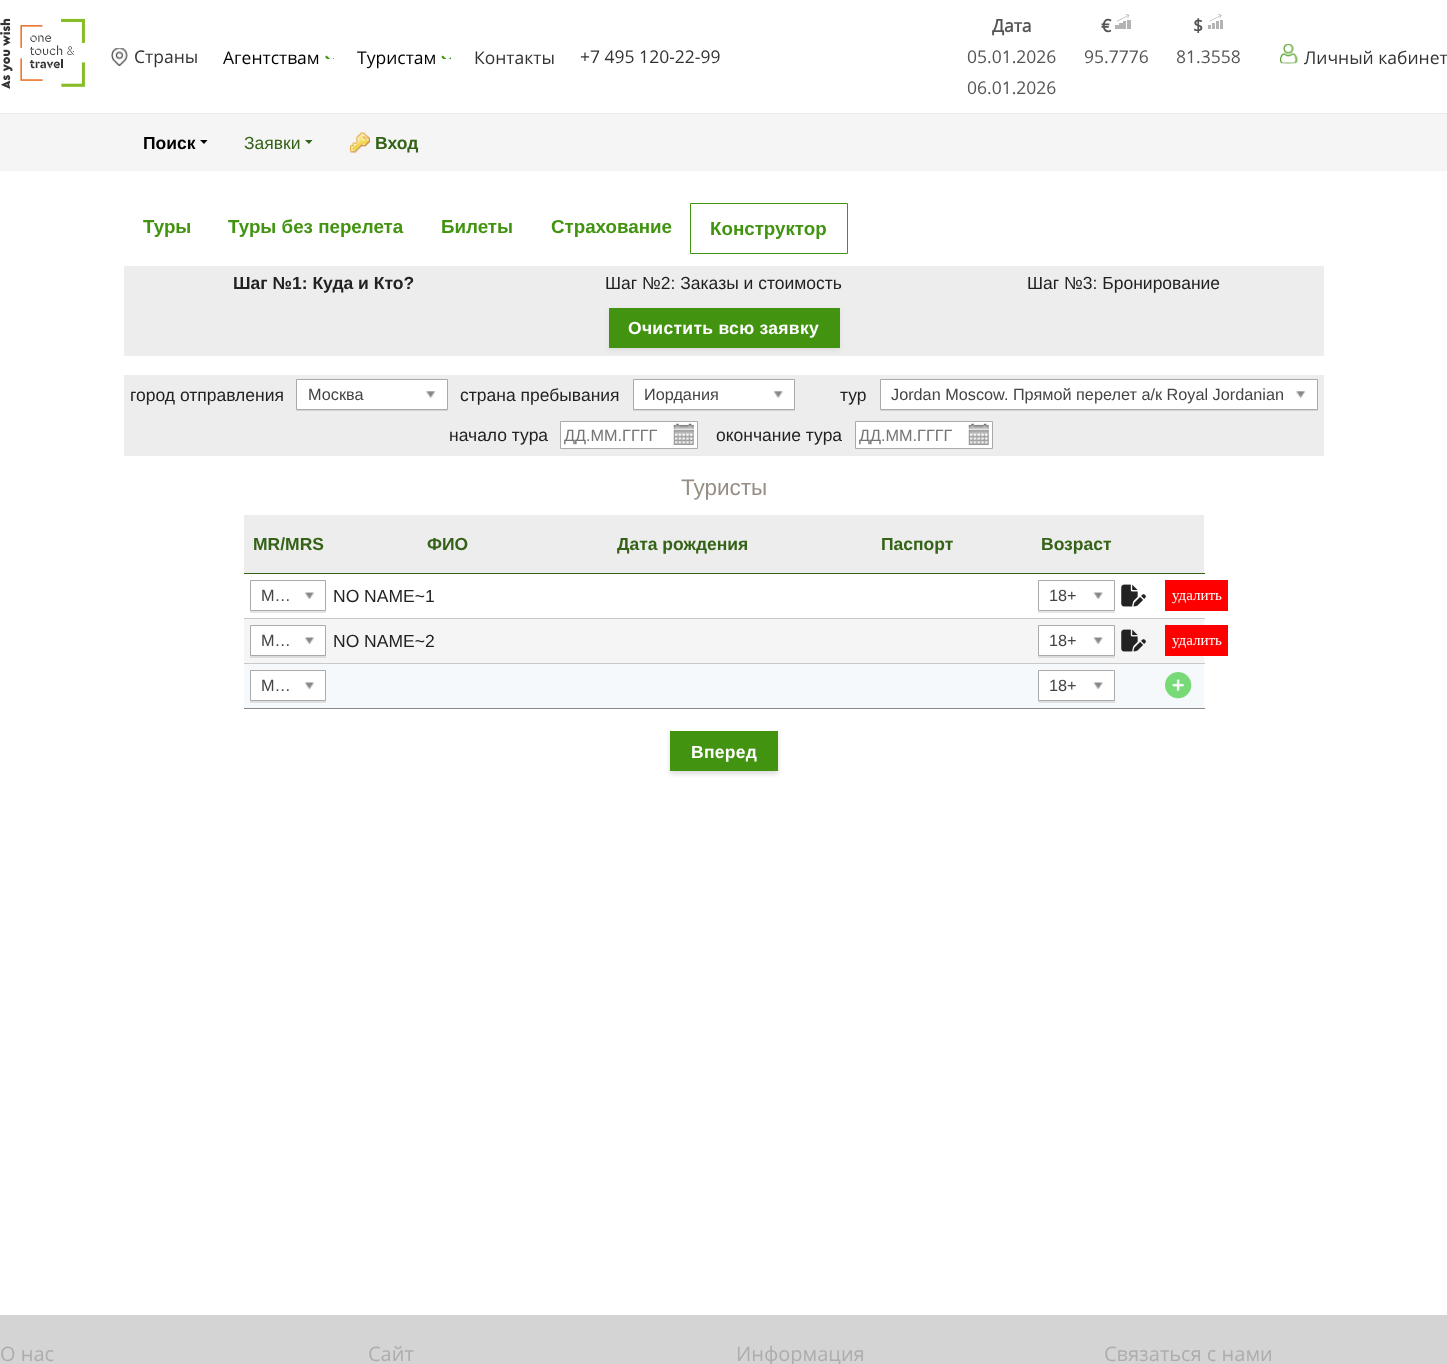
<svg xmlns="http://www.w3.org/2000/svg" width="1447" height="1364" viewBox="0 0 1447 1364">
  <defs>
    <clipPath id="clip1"><path d="M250 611h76v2H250z"/></clipPath>
    <clipPath id="clip2"><path d="M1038 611h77v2H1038z"/></clipPath>
  </defs>
  <rect width="100%" height="100%" fill="#fff"/>
  <path d="M0 113h1447v1H0z" fill="#ebebeb"/>
  <image x="0" y="18" width="85" height="71" href="img/1.png"/>
  <image x="111" y="48" width="17" height="18" href="img/2.png"/>
  <image x="325" y="55" width="9" height="4" href="img/3.png"/>
  <image x="441" y="55" width="10" height="4" href="img/4.png"/>
  <image x="1115" y="14" width="16" height="15" href="img/5.png"/>
  <image x="1208" y="14" width="15" height="15" href="img/6.png"/>
  <image x="1280" y="44" width="18" height="20" href="img/7.png"/>
  <path d="M0 114h1447v57H0z" fill="#f5f5f5"/>
  <path d="M200 140H207.5L204 144Z" fill="#000"/>
  <path d="M305 140H312.5L309 144Z" fill="#346217"/>
  <image x="350" y="132" width="20" height="21" href="img/8.png"/>
  <path d="M690.5 203.5h157v50H690.5z" fill="none" stroke="#429410"/>
  <path d="M124 266h1200v90H124z" fill="#ededed"/>
  <path d="M609 310h231v40H609z" fill="#dbdbdb" filter="blur(2.5px)"/>
  <path d="M609 308h231v40H609z" fill="#429410"/>
  <path d="M124 375h1200v81H124z" fill="#ededed"/>
  <path d="M296 380h152v31H296z" fill="#0000001a" filter="blur(0.5px)"/>
  <path d="M296.5 379.5h151v30H296.5z" fill="#fff" stroke="#aaa"/>
  <image x="426" y="391" width="10" height="8" href="img/9.png"/>
  <path d="M633 380h162v31H633z" fill="#0000001a" filter="blur(0.5px)"/>
  <path d="M633.5 379.5h161v30H633.5z" fill="#fff" stroke="#aaa"/>
  <image x="773" y="391" width="10" height="7" href="img/10.png"/>
  <path d="M880 380h438v31H880z" fill="#0000001a" filter="blur(0.5px)"/>
  <path d="M880.5 379.5h437v30H880.5z" fill="#fff" stroke="#aaa"/>
  <image x="1296" y="391" width="10" height="8" href="img/9.png"/>
  <path d="M560.5 421.5h137v27H560.5z" fill="#fff" stroke="#aaa"/>
  <image x="673" y="423" width="21" height="22" href="img/11.png"/>
  <path d="M855.5 421.5h137v27H855.5z" fill="#fff" stroke="#aaa"/>
  <image x="968" y="423" width="21" height="22" href="img/11.png"/>
  <path d="M244 515h960v58H244z" fill="#ededed"/>
  <path d="M244 573h961v1H244z" fill="#346217"/>
  <g clip-path="url(#clip1)">
    <path d="M250 581h76v32H250z" fill="#0000001a" filter="blur(0.5px)"/>
  </g>
  <path d="M250.5 580.5h75v30H250.5z" fill="none" stroke="#aaa"/>
  <image x="305" y="592" width="9" height="8" href="img/12.png"/>
  <g clip-path="url(#clip2)">
    <path d="M1038 581h77v32H1038z" fill="#0000001a" filter="blur(0.5px)"/>
  </g>
  <path d="M1038.5 580.5h76v30H1038.5z" fill="none" stroke="#aaa"/>
  <image x="1093" y="592" width="10" height="7" href="img/13.png"/>
  <image x="1121" y="584" width="25" height="23" href="img/14.png"/>
  <path d="M244 618h961v1H244z" fill="#c8c8c8"/>
  <path d="M1165 580h63v31H1165z" fill="#f00"/>
  <path d="M244 619h960v44H244z" fill="#f5f5f5"/>
  <path d="M250 626h76v32H250z" fill="#0000001a" filter="blur(0.5px)"/>
  <path d="M250.5 625.5h75v30H250.5z" fill="#fff" stroke="#aaa"/>
  <image x="305" y="637" width="9" height="8" href="img/15.png"/>
  <path d="M1038 626h77v32H1038z" fill="#0000001a" filter="blur(0.5px)"/>
  <path d="M1038.5 625.5h76v30H1038.5z" fill="#fff" stroke="#aaa"/>
  <image x="1093" y="637" width="10" height="7" href="img/16.png"/>
  <image x="1121" y="629" width="25" height="23" href="img/17.png"/>
  <path d="M244 663h961v1H244z" fill="#c8c8c8"/>
  <path d="M1165 625h63v31H1165z" fill="#f00"/>
  <path d="M244 708h961v1H244z" fill="#888"/>
  <path d="M244 664h960v44H244z" fill="#f6f9fb"/>
  <image x="1165" y="672" width="27" height="27" href="img/18.png"/>
  <path d="M250 671h76v32H250z" fill="#0000001a" filter="blur(0.5px)"/>
  <path d="M250.5 670.5h75v30H250.5z" fill="#fff" stroke="#aaa"/>
  <image x="305" y="682" width="9" height="8" href="img/15.png"/>
  <path d="M1038 671h77v32H1038z" fill="#0000001a" filter="blur(0.5px)"/>
  <path d="M1038.5 670.5h76v30H1038.5z" fill="#fff" stroke="#aaa"/>
  <image x="1093" y="682" width="10" height="7" href="img/16.png"/>
  <path d="M670 734h108v40H670z" fill="#dbdbdb" filter="blur(2.5px)"/>
  <path d="M670 731h108v40H670z" fill="#429410"/>
  <path d="M0 1315h1447v49H0z" fill="#d4d4d4"/>
  <text x="134" y="63" font-family="Open Sans" font-size="17.5" fill="#333">Страны</text>
  <g font-family="Open Sans" font-size="17.5" fill="#000">
    <text x="223" y="64">Агентствам</text>
    <text x="357" y="64">Туристам</text>
  </g>
  <g font-family="Open Sans" font-size="17.5" fill="#333">
    <text x="474" y="64">Контакты</text>
    <text x="580" y="63">+7 495 120-22-99</text>
  </g>
  <g font-family="Open Sans" font-size="17.5" font-weight="bold" fill="#555">
    <text x="992" y="32">Дата</text>
    <text x="1101" y="32">€</text>
    <text x="1193" y="32">$</text>
  </g>
  <g font-family="Open Sans" font-size="17.5" fill="#555">
    <text x="967" y="63">05.01.2026</text>
    <text x="1084" y="63">95.7776</text>
    <text x="1176" y="63">81.3558</text>
    <text x="967" y="94">06.01.2026</text>
  </g>
  <text x="1304" y="64" font-family="Open Sans" font-size="17.5" fill="#333">Личный кабинет</text>
  <text x="143" y="149" font-family="Liberation Sans" font-size="17.5" font-weight="bold" fill="#000">Поиск</text>
  <text x="244" y="149" font-family="Liberation Sans" font-size="17.5" fill="#346217">Заявки</text>
  <text x="375" y="149" font-family="Liberation Sans" font-size="17.5" font-weight="bold" fill="#346217">Вход</text>
  <g font-family="Liberation Sans" font-size="18.75" font-weight="bold" fill="#429410">
    <text x="143" y="233">Туры</text>
    <text x="228" y="233">Туры без перелета</text>
    <text x="441" y="233">Билеты</text>
    <text x="551" y="233">Страхование</text>
    <text x="710" y="235">Конструктор</text>
  </g>
  <text x="233" y="289" font-family="Liberation Sans" font-size="17.5" font-weight="bold" fill="#222">Шаг №1: Куда и Кто?</text>
  <g font-family="Liberation Sans" font-size="17.5" fill="#222">
    <text x="605" y="289">Шаг №2: Заказы и стоимость</text>
    <text x="1027" y="289">Шаг №3: Бронирование</text>
  </g>
  <text x="628" y="334" font-family="Liberation Sans" font-size="17.5" font-weight="bold" letter-spacing="0.3" fill="#fff">Очистить всю заявку</text>
  <text x="130" y="401" font-family="Liberation Sans" font-size="17.5" fill="#222">город отправления</text>
  <text x="308" y="400" font-family="Liberation Sans" font-size="16.25" fill="#444">Москва</text>
  <text x="460" y="401" font-family="Liberation Sans" font-size="17.5" fill="#222">страна пребывания</text>
  <text x="644" y="400" font-family="Liberation Sans" font-size="16.25" fill="#444">Иордания</text>
  <text x="840" y="401" font-family="Liberation Sans" font-size="17.5" fill="#222">тур</text>
  <text x="891" y="400" font-family="Liberation Sans" font-size="16.25" fill="#444">Jordan Moscow. Прямой перелет а/к Royal Jordanian</text>
  <text x="449" y="441" font-family="Liberation Sans" font-size="17.5" fill="#222">начало тура</text>
  <text x="564" y="441" font-family="Liberation Sans" font-size="16.25" fill="#757575">ДД.ММ.ГГГГ</text>
  <text x="716" y="441" font-family="Liberation Sans" font-size="17.5" fill="#222">окончание тура</text>
  <text x="859" y="441" font-family="Liberation Sans" font-size="16.25" fill="#757575">ДД.ММ.ГГГГ</text>
  <text x="681" y="495" font-family="Liberation Sans" font-size="22.5" fill="#978e85">Туристы</text>
  <g font-family="Liberation Sans" font-size="17.5" font-weight="bold" fill="#346217">
    <text x="253" y="550">MR/MRS</text>
    <text x="427" y="550">ФИО</text>
    <text x="617" y="550">Дата рождения</text>
    <text x="881" y="550">Паспорт</text>
    <text x="1041" y="550">Возраст</text>
  </g>
  <text x="261" y="601" font-family="Liberation Sans" font-size="16.25" fill="#444">M…</text>
  <text x="333" y="602" font-family="Liberation Sans" font-size="17.5" fill="#222">NO NAME~1</text>
  <text x="1049" y="601" font-family="Liberation Sans" font-size="16.25" fill="#444">18+</text>
  <text x="1172" y="600" font-family="Liberation Serif" font-size="15" fill="#fff">удалить</text>
  <text x="261" y="646" font-family="Liberation Sans" font-size="16.25" fill="#444">M…</text>
  <text x="333" y="647" font-family="Liberation Sans" font-size="17.5" fill="#222">NO NAME~2</text>
  <text x="1049" y="646" font-family="Liberation Sans" font-size="16.25" fill="#444">18+</text>
  <text x="1172" y="645" font-family="Liberation Serif" font-size="15" fill="#fff">удалить</text>
  <g font-family="Liberation Sans" font-size="16.25" fill="#444">
    <text x="261" y="691">M…</text>
    <text x="1049" y="691">18+</text>
  </g>
  <text x="691" y="758" font-family="Liberation Sans" font-size="17.5" font-weight="bold" letter-spacing="0.3" fill="#fff">Вперед</text>
  <g font-family="Open Sans" font-size="20" fill="#adadad">
    <text x="0" y="1361">О нас</text>
    <text x="368" y="1361">Сайт</text>
    <text x="736" y="1361">Информация</text>
    <text x="1104" y="1361">Связаться с нами</text>
  </g>
</svg>
